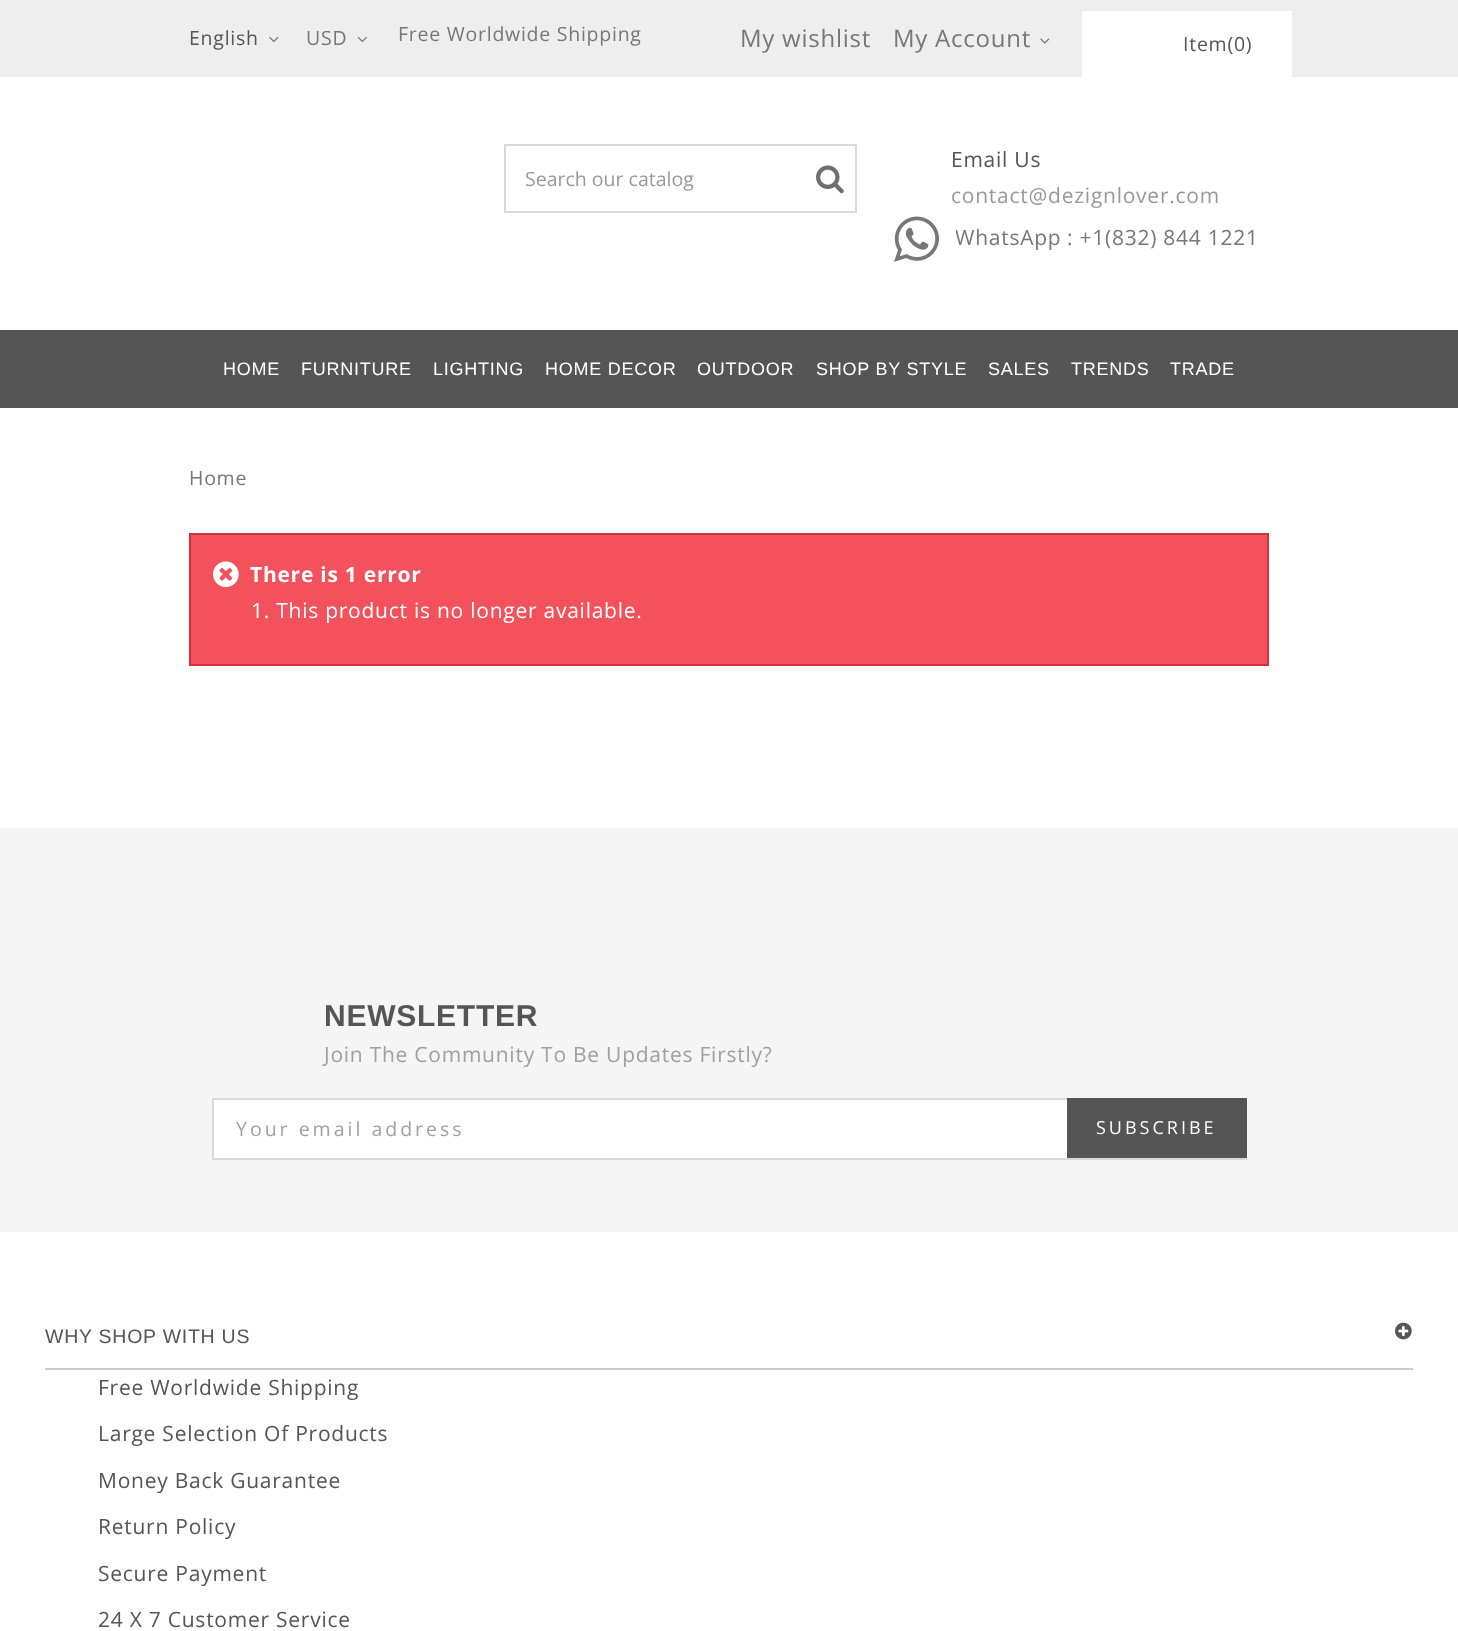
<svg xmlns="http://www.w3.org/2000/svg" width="1458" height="1631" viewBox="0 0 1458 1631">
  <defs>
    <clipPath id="clip1"><path d="M956 213h303v48H956z"/></clipPath>
  </defs>
  <rect width="100%" height="100%" fill="#fff"/>
  <path d="M0 0h1458v77H0z" fill="#eee"/>
  <image x="269" y="36" width="10" height="7" href="img/1.png"/>
  <image x="357" y="36" width="10" height="7" href="img/2.png"/>
  <image x="1040" y="38" width="10" height="6" href="img/3.png"/>
  <path d="M1082 11h210v66H1082z" fill="#fff"/>
  <path d="M505 145h351v67H505z" fill="none" stroke="#d9d9d9" stroke-width="2"/>
  <image x="816" y="165" width="28" height="29" href="img/4.png"/>
  <image x="894" y="216" width="45" height="46" href="img/5.png"/>
  <path d="M0 330h1458v78H0z" fill="#555"/>
  <path d="M190 534h1078v131H190z" fill="#f3515c" stroke="#d4323d" stroke-width="2"/>
  <image x="213" y="561" width="26" height="27" href="img/6.png"/>
  <path d="M0 828h1458v404H0z" fill="#f5f5f5"/>
  <path d="M214 1100h853v58H214z" fill="#fff"/>
  <path d="M213 1099h1033v60H213z" fill="none" stroke="#d9d9d9" stroke-width="2"/>
  <path d="M1067 1098h180v60H1067z" fill="#555"/>
  <path d="M45 1368h1368v2H45z" fill="#ccc"/>
  <image x="1395" y="1322" width="17" height="18" href="img/7.png"/>
  <text x="189" y="45" font-family="Open Sans" font-size="19.5" letter-spacing="0.75" fill="#555">English</text>
  <g font-family="Open Sans" font-size="19.5" letter-spacing="0.75" fill="#777">
    <text x="306" y="45">USD</text>
    <text x="398" y="41">Free Worldwide Shipping</text>
  </g>
  <g font-family="Open Sans" font-size="24" letter-spacing="0.75" fill="#777">
    <text x="740" y="47">My wishlist</text>
    <text x="893" y="47">My Account</text>
  </g>
  <text x="1183" y="51" font-family="Open Sans" font-size="19.5" letter-spacing="0.75" fill="#555">Item(0)</text>
  <text x="525" y="186" font-family="Open Sans" font-size="19.5" fill="#999">Search our catalog</text>
  <text x="951" y="167" font-family="Open Sans" font-size="21" letter-spacing="0.75" fill="#555">Email Us</text>
  <text x="951" y="203" font-family="Open Sans" font-size="21" letter-spacing="0.75" fill="#999">contact@dezignlover.com</text>
  <g clip-path="url(#clip1)">
    <text x="955" y="245" font-family="Open Sans" font-size="21" letter-spacing="0.75" fill="#777">WhatsApp</text>
  </g>
  <text x="1067" y="245" font-family="Open Sans" font-size="21" letter-spacing="0.75" fill="#777">: +1(832) 844 1221</text>
  <g font-family="Liberation Sans" font-size="18" letter-spacing="0.75" fill="#fff">
    <text x="223" y="375">HOME</text>
    <text x="301" y="375">FURNITURE</text>
    <text x="433" y="375">LIGHTING</text>
    <text x="545" y="375">HOME DECOR</text>
    <text x="697" y="375">OUTDOOR</text>
    <text x="816" y="375">SHOP BY STYLE</text>
    <text x="988" y="375">SALES</text>
    <text x="1071" y="375">TRENDS</text>
    <text x="1170" y="375">TRADE</text>
  </g>
  <text x="189" y="485" font-family="Open Sans" font-size="19.5" letter-spacing="0.75" fill="#777">Home</text>
  <text x="250" y="582" font-family="Open Sans" font-size="21" font-weight="bold" letter-spacing="0.75" fill="#fff">There is 1 error</text>
  <text x="251" y="618" font-family="Open Sans" font-size="21" letter-spacing="0.75" fill="#fff">1. This product is no longer available.</text>
  <text x="324" y="1026" font-family="Liberation Sans" font-size="30" font-weight="bold" letter-spacing="0.75" fill="#555">NEWSLETTER</text>
  <text x="324" y="1062" font-family="Open Sans" font-size="21" letter-spacing="0.75" fill="#a1a0a0">Join The Community To Be Updates Firstly?</text>
  <text x="236" y="1136" font-family="Open Sans" font-size="19.5" letter-spacing="3" fill="#a1a0a0">Your email address</text>
  <text x="1096" y="1134" font-family="Open Sans" font-size="18" letter-spacing="3" fill="#fff">SUBSCRIBE</text>
  <text x="45" y="1343" font-family="Liberation Sans" font-size="19.5" letter-spacing="0.75" fill="#555">WHY SHOP WITH US</text>
  <g font-family="Open Sans" font-size="21" letter-spacing="0.75" fill="#555">
    <text x="98" y="1395">Free Worldwide Shipping</text>
    <text x="98" y="1441">Large Selection Of Products</text>
    <text x="98" y="1488">Money Back Guarantee</text>
    <text x="98" y="1534">Return Policy</text>
    <text x="98" y="1581">Secure Payment</text>
    <text x="98" y="1627">24 X 7 Customer Service</text>
  </g>
</svg>
